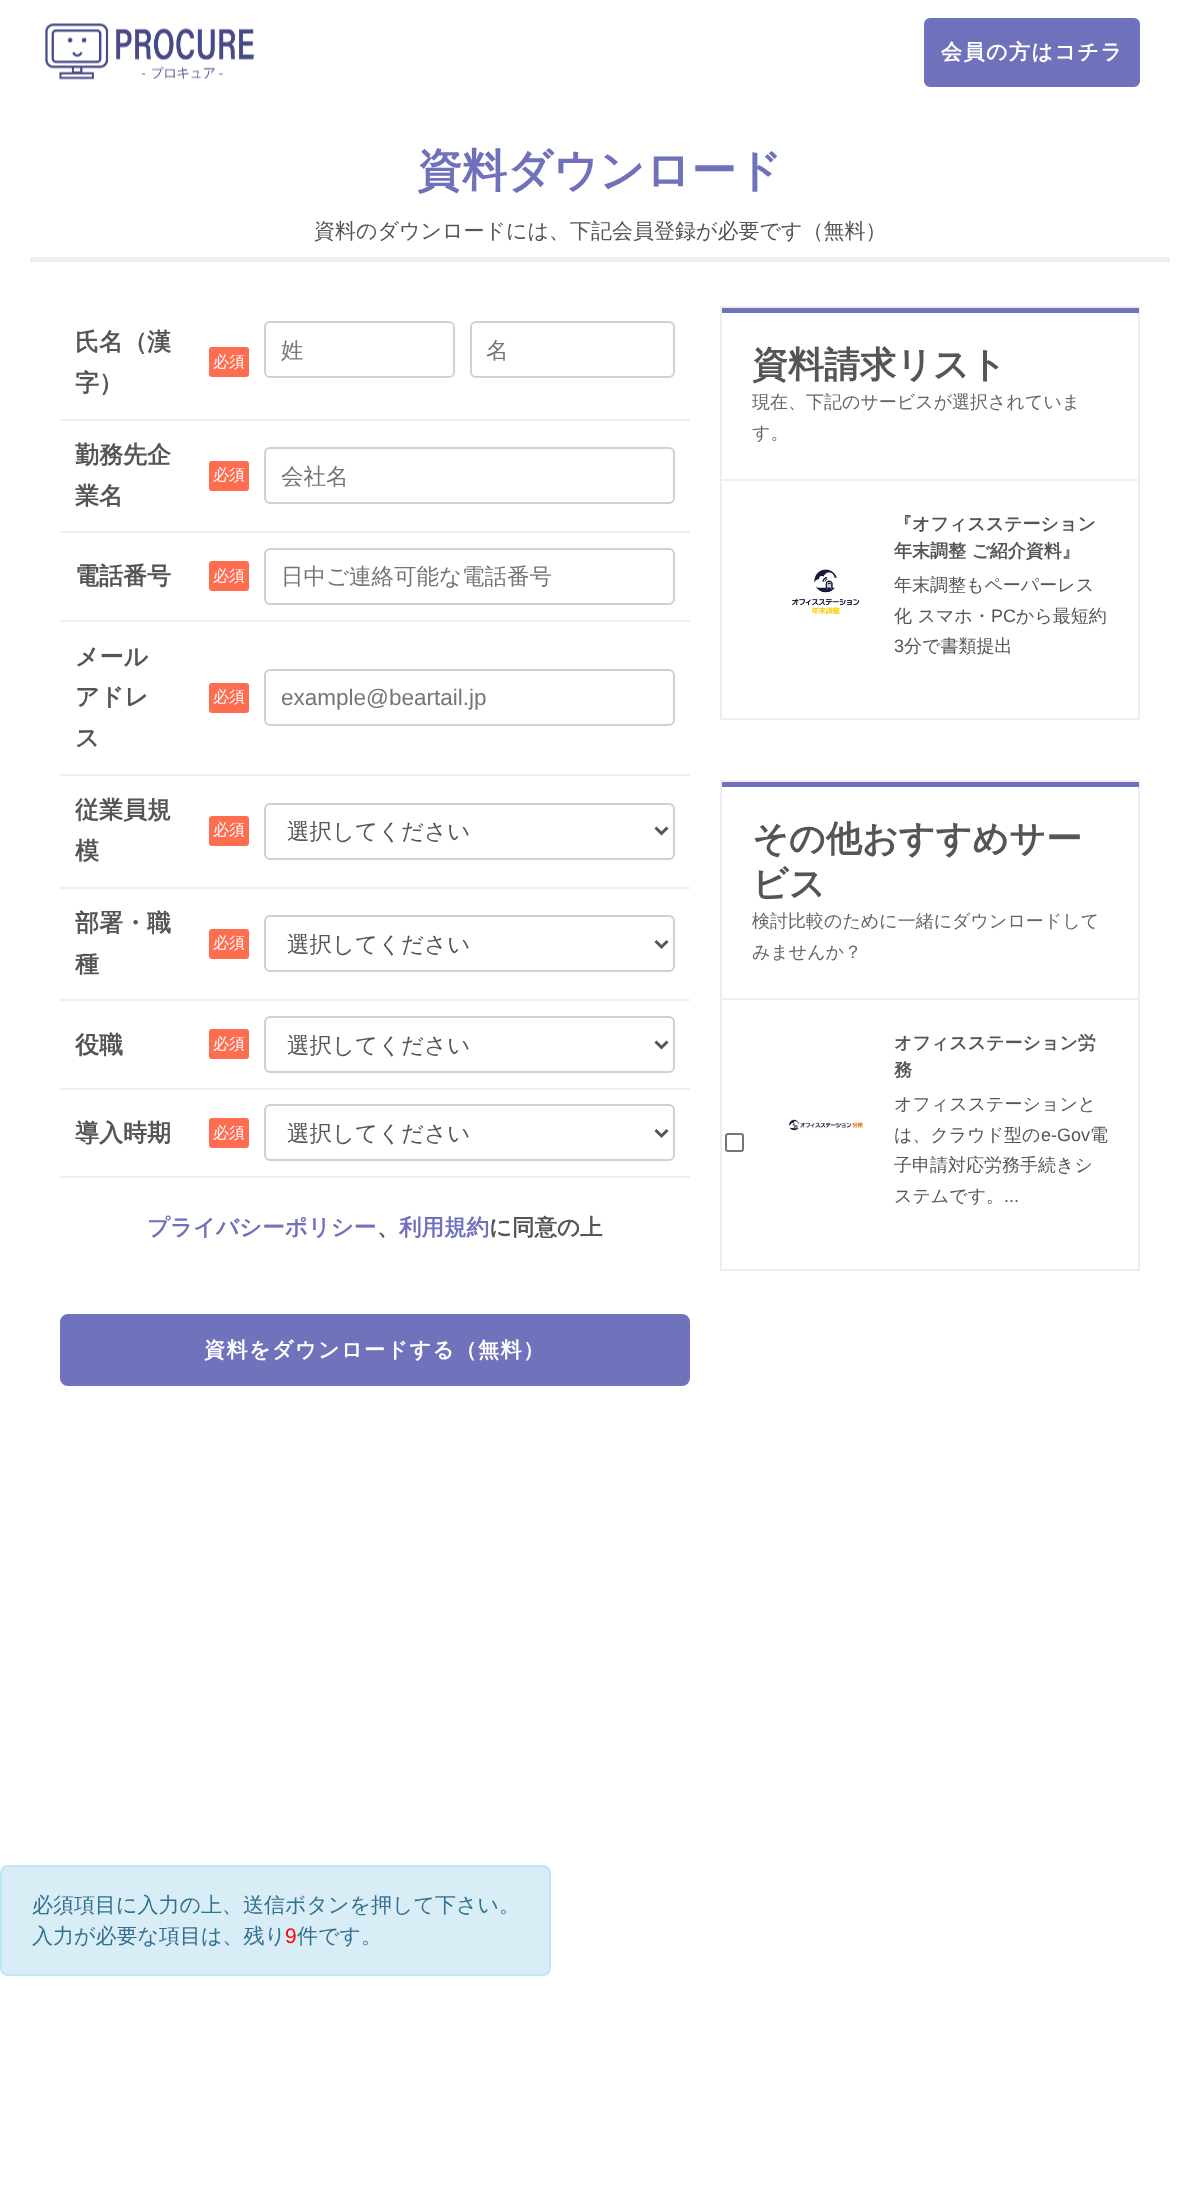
<svg xmlns="http://www.w3.org/2000/svg" width="1199" height="2188" viewBox="0 0 1199 2188">
  <rect width="100%" height="100%" fill="#fff"/>
  <image x="45" y="23" width="209" height="57" href="img/1.png"/>
  <rect x="925" y="19" width="214" height="67" rx="5" fill="#7071bb" stroke="#7071bb" stroke-width="2"/>
  <path d="M30 257h1140v5H30z" fill="#eee"/>
  <path d="M60 419h630v2H60z" fill="#eee"/>
  <rect x="209" y="347" width="40" height="30" rx="3" fill="#ff6d50"/>
  <rect x="265" y="322" width="189" height="55" rx="5" fill="none" stroke="#d1d1d1" stroke-width="2"/>
  <rect x="471" y="322" width="203" height="55" rx="5" fill="none" stroke="#d1d1d1" stroke-width="2"/>
  <path d="M60 531h630v2H60z" fill="#eee"/>
  <rect x="209" y="461" width="40" height="30" rx="3" fill="#ff6d50"/>
  <rect x="265" y="448" width="409" height="55" rx="5" fill="none" stroke="#d1d1d1" stroke-width="2"/>
  <path d="M60 620h630v2H60z" fill="#eee"/>
  <rect x="209" y="561" width="40" height="30" rx="3" fill="#ff6d50"/>
  <rect x="265" y="549" width="409" height="55" rx="5" fill="none" stroke="#d1d1d1" stroke-width="2"/>
  <path d="M60 774h630v2H60z" fill="#eee"/>
  <rect x="209" y="683" width="40" height="30" rx="3" fill="#ff6d50"/>
  <rect x="265" y="670" width="409" height="55" rx="5" fill="none" stroke="#d1d1d1" stroke-width="2"/>
  <path d="M60 887h630v2H60z" fill="#eee"/>
  <rect x="209" y="816" width="40" height="30" rx="3" fill="#ff6d50"/>
  <rect x="265" y="804" width="409" height="55" rx="5" fill="none" stroke="#d1d1d1" stroke-width="2"/>
  <path d="M655.5 827.5L661.5 833.5L667.5 827.5" fill="none" stroke="#555" stroke-width="3"/>
  <path d="M60 999h630v2H60z" fill="#eee"/>
  <rect x="209" y="929" width="40" height="30" rx="3" fill="#ff6d50"/>
  <rect x="265" y="916" width="409" height="55" rx="5" fill="none" stroke="#d1d1d1" stroke-width="2"/>
  <path d="M655.5 941L661.5 947L667.5 941" fill="none" stroke="#555" stroke-width="3"/>
  <path d="M60 1088h630v2H60z" fill="#eee"/>
  <rect x="209" y="1029" width="40" height="30" rx="3" fill="#ff6d50"/>
  <rect x="265" y="1017" width="409" height="55" rx="5" fill="none" stroke="#d1d1d1" stroke-width="2"/>
  <path d="M655.5 1041.5L661.5 1047.5L667.5 1041.5" fill="none" stroke="#555" stroke-width="3"/>
  <path d="M60 1176h630v2H60z" fill="#eee"/>
  <rect x="209" y="1118" width="40" height="30" rx="3" fill="#ff6d50"/>
  <rect x="265" y="1105" width="409" height="55" rx="5" fill="none" stroke="#d1d1d1" stroke-width="2"/>
  <path d="M655.5 1130L661.5 1136L667.5 1130" fill="none" stroke="#555" stroke-width="3"/>
  <rect x="62.5" y="1316.5" width="625" height="67" rx="5.5" fill="#7072bb" stroke="#7072bb" stroke-width="5"/>
  <path d="M721 307h418v412H721z" fill="none" stroke="#eee" stroke-width="2"/>
  <path d="M722 308h417v5H722z" fill="#7071bb"/>
  <path d="M722 479h417v2H722z" fill="#eee"/>
  <image x="792" y="569" width="68" height="46" href="img/2.png"/>
  <path d="M721 781h418v489H721z" fill="none" stroke="#eee" stroke-width="2"/>
  <path d="M722 782h417v5H722z" fill="#7071bb"/>
  <path d="M722 998h417v2H722z" fill="#eee"/>
  <image x="788" y="1119" width="75" height="12" href="img/3.png"/>
  <rect x="726" y="1134" width="17" height="17" rx="2" fill="none" stroke="#767676" stroke-width="2"/>
  <rect x="1" y="1866" width="549" height="109" rx="7" fill="#d9edf7" stroke="#bce8f1" stroke-width="2"/>
  <text x="941" y="59" font-family="WenQuanYi Zen Hei" font-size="21" font-weight="bold" letter-spacing="1.5" fill="#fff">会員の方はコチラ</text>
  <text x="417" y="186" font-family="WenQuanYi Zen Hei" font-size="45" font-weight="bold" fill="#7071bb">資料ダウンロード</text>
  <text x="314" y="238" font-family="WenQuanYi Zen Hei" font-size="21" font-weight="500" fill="#555">資料のダウンロードには、下記会員登録が必要です（無料）</text>
  <text x="75" y="350" font-family="WenQuanYi Zen Hei" font-size="24" font-weight="bold" fill="#555">氏名（漢</text>
  <text x="213" y="367" font-family="WenQuanYi Zen Hei" font-size="16" font-weight="500" fill="#fff">必須</text>
  <text x="75" y="391" font-family="WenQuanYi Zen Hei" font-size="24" font-weight="bold" fill="#555">字）</text>
  <g font-family="WenQuanYi Zen Hei" font-size="22.5" font-weight="500" fill="#757575">
    <text x="281" y="358">姓</text>
    <text x="486" y="358">名</text>
  </g>
  <text x="75" y="463" font-family="WenQuanYi Zen Hei" font-size="24" font-weight="bold" fill="#555">勤務先企</text>
  <text x="213" y="480" font-family="WenQuanYi Zen Hei" font-size="16" font-weight="500" fill="#fff">必須</text>
  <text x="75" y="504" font-family="WenQuanYi Zen Hei" font-size="24" font-weight="bold" fill="#555">業名</text>
  <text x="281" y="484" font-family="WenQuanYi Zen Hei" font-size="22.5" font-weight="500" fill="#757575">会社名</text>
  <text x="75" y="584" font-family="WenQuanYi Zen Hei" font-size="24" font-weight="bold" fill="#555">電話番号</text>
  <text x="213" y="581" font-family="WenQuanYi Zen Hei" font-size="16" font-weight="500" fill="#fff">必須</text>
  <text x="281" y="584" font-family="WenQuanYi Zen Hei" font-size="22.5" font-weight="500" fill="#757575">日中ご連絡可能な電話番号</text>
  <g font-family="WenQuanYi Zen Hei" font-size="24" font-weight="bold" fill="#555">
    <text x="75" y="665">メール</text>
    <text x="75" y="705">アドレ</text>
  </g>
  <text x="213" y="702" font-family="WenQuanYi Zen Hei" font-size="16" font-weight="500" fill="#fff">必須</text>
  <text x="75" y="746" font-family="WenQuanYi Zen Hei" font-size="24" font-weight="bold" fill="#555">ス</text>
  <text x="281" y="705" font-family="Liberation Sans" font-size="22.5" fill="#757575">example@beartail.jp</text>
  <text x="75" y="818" font-family="WenQuanYi Zen Hei" font-size="24" font-weight="bold" fill="#555">従業員規</text>
  <text x="213" y="835" font-family="WenQuanYi Zen Hei" font-size="16" font-weight="500" fill="#fff">必須</text>
  <text x="75" y="859" font-family="WenQuanYi Zen Hei" font-size="24" font-weight="bold" fill="#555">模</text>
  <text x="287" y="839" font-family="WenQuanYi Zen Hei" font-size="22.5" font-weight="500" fill="#555">選択してください</text>
  <text x="75" y="931" font-family="WenQuanYi Zen Hei" font-size="24" font-weight="bold" fill="#555">部署・職</text>
  <text x="213" y="948" font-family="WenQuanYi Zen Hei" font-size="16" font-weight="500" fill="#fff">必須</text>
  <text x="75" y="972" font-family="WenQuanYi Zen Hei" font-size="24" font-weight="bold" fill="#555">種</text>
  <text x="287" y="952" font-family="WenQuanYi Zen Hei" font-size="22.5" font-weight="500" fill="#555">選択してください</text>
  <text x="75" y="1053" font-family="WenQuanYi Zen Hei" font-size="24" font-weight="bold" fill="#555">役職</text>
  <text x="213" y="1049" font-family="WenQuanYi Zen Hei" font-size="16" font-weight="500" fill="#fff">必須</text>
  <text x="287" y="1053" font-family="WenQuanYi Zen Hei" font-size="22.5" font-weight="500" fill="#555">選択してください</text>
  <text x="75" y="1141" font-family="WenQuanYi Zen Hei" font-size="24" font-weight="bold" fill="#555">導入時期</text>
  <text x="213" y="1138" font-family="WenQuanYi Zen Hei" font-size="16" font-weight="500" fill="#fff">必須</text>
  <text x="287" y="1141" font-family="WenQuanYi Zen Hei" font-size="22.5" font-weight="500" fill="#555">選択してください</text>
  <text x="147" y="1235" font-family="WenQuanYi Zen Hei" font-size="22.5" font-weight="bold" fill="#7071bb">プライバシーポリシー</text>
  <text x="377" y="1235" font-family="WenQuanYi Zen Hei" font-size="22.5" font-weight="bold" fill="#555">、</text>
  <text x="399" y="1235" font-family="WenQuanYi Zen Hei" font-size="22.5" font-weight="bold" fill="#7071bb">利用規約</text>
  <text x="489" y="1235" font-family="WenQuanYi Zen Hei" font-size="22.5" font-weight="bold" fill="#555">に同意の上</text>
  <text x="204" y="1357" font-family="WenQuanYi Zen Hei" font-size="21" font-weight="bold" letter-spacing="1.5" fill="#fff">資料をダウンロードする（無料）</text>
  <text x="752" y="377" font-family="WenQuanYi Zen Hei" font-size="36" font-weight="bold" fill="#555">資料請求リスト</text>
  <g font-family="WenQuanYi Zen Hei" font-size="18" font-weight="500" fill="#666">
    <text x="752" y="408">現在、下記のサービスが選択されていま</text>
    <text x="752" y="439">す。</text>
  </g>
  <g font-family="WenQuanYi Zen Hei" font-size="18" font-weight="bold" fill="#555">
    <text x="894" y="530">『オフィスステーション</text>
    <text x="894" y="557">年末調整 ご紹介資料』</text>
  </g>
  <g font-family="WenQuanYi Zen Hei" font-size="18" font-weight="500" fill="#555">
    <text x="894" y="591">年末調整もペーパーレス</text>
    <text x="894" y="622">化 スマホ・</text>
  </g>
  <text x="991" y="622" font-family="Liberation Sans" font-size="18" fill="#555">PC</text>
  <text x="1016" y="622" font-family="WenQuanYi Zen Hei" font-size="18" font-weight="500" fill="#555">から最短約</text>
  <text x="894" y="652" font-family="Liberation Sans" font-size="18" fill="#555">3</text>
  <text x="904" y="652" font-family="WenQuanYi Zen Hei" font-size="18" font-weight="500" fill="#555">分で書類提出</text>
  <g font-family="WenQuanYi Zen Hei" font-size="36" font-weight="bold" fill="#555">
    <text x="752" y="851">その他おすすめサー</text>
    <text x="752" y="896">ビス</text>
  </g>
  <g font-family="WenQuanYi Zen Hei" font-size="18" font-weight="500" fill="#666">
    <text x="752" y="927">検討比較のために一緒にダウンロードして</text>
    <text x="752" y="958">みませんか？</text>
  </g>
  <g font-family="WenQuanYi Zen Hei" font-size="18" font-weight="bold" fill="#555">
    <text x="894" y="1049">オフィスステーション労</text>
    <text x="894" y="1076">務</text>
  </g>
  <g font-family="WenQuanYi Zen Hei" font-size="18" font-weight="500" fill="#555">
    <text x="894" y="1110">オフィスステーションと</text>
    <text x="894" y="1141">は、クラウド型の</text>
  </g>
  <text x="1041" y="1141" font-family="Liberation Sans" font-size="18" fill="#555">e-Gov</text>
  <g font-family="WenQuanYi Zen Hei" font-size="18" font-weight="500" fill="#555">
    <text x="1090" y="1141">電</text>
    <text x="894" y="1171">子申請対応労務手続きシ</text>
    <text x="894" y="1202">ステムです。</text>
  </g>
  <text x="1004" y="1202" font-family="Liberation Sans" font-size="18" fill="#555">...</text>
  <g font-family="WenQuanYi Zen Hei" font-size="21" font-weight="500" fill="#31708f">
    <text x="32" y="1912">必須項目に入力の上、送信ボタンを押して下さい。</text>
    <text x="32" y="1943">入力が必要な項目は、残り</text>
  </g>
  <text x="285" y="1943" font-family="Liberation Sans" font-size="21" fill="#f00">9</text>
  <text x="297" y="1943" font-family="WenQuanYi Zen Hei" font-size="21" font-weight="500" fill="#31708f">件です。</text>
</svg>
